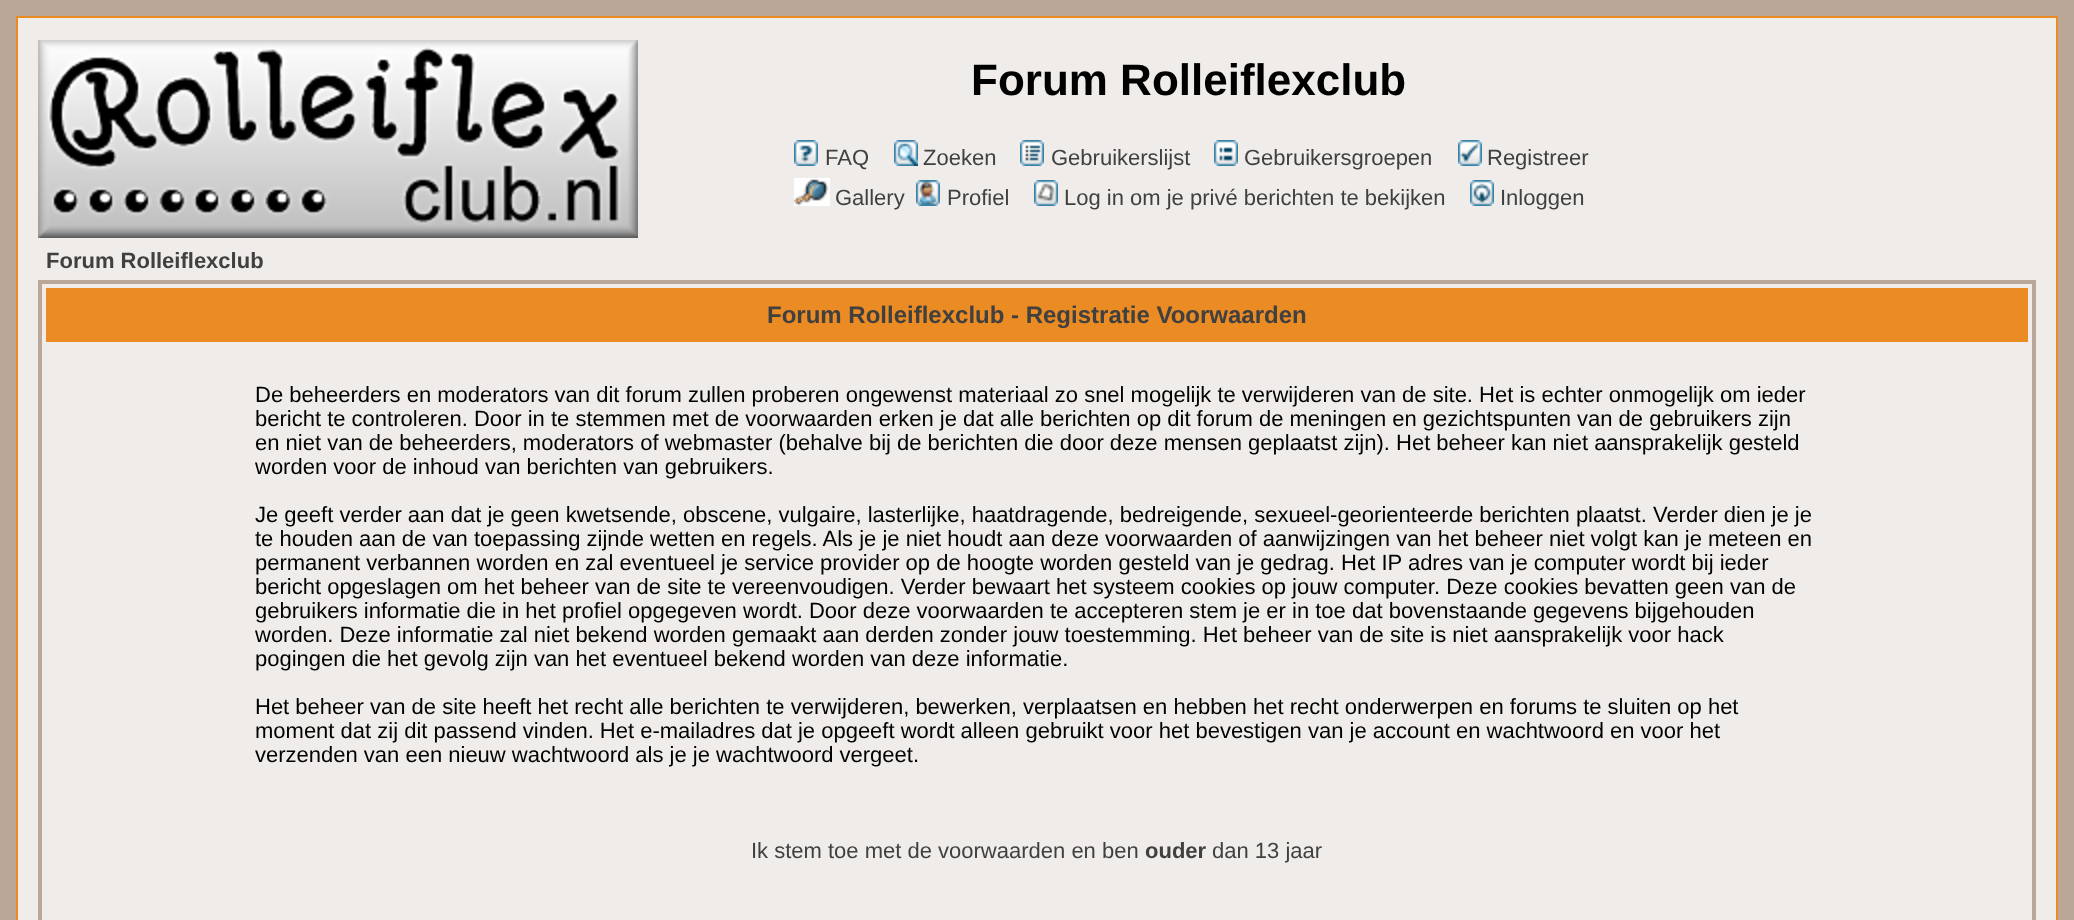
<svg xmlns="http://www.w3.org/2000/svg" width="2074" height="920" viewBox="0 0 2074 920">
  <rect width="100%" height="100%" fill="#bba798"/>
  <path d="M17 17h2040v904H17z" fill="#f0ece9" stroke="#eb8b23" stroke-width="2"/>
  <image x="38" y="40" width="600" height="198" href="img/1.png"/>
  <image x="794" y="140" width="24" height="26" href="img/2.png"/>
  <image x="894" y="140" width="24" height="26" href="img/3.png"/>
  <image x="1020" y="140" width="24" height="26" href="img/4.png"/>
  <image x="1214" y="140" width="24" height="26" href="img/5.png"/>
  <image x="1458" y="140" width="24" height="26" href="img/6.png"/>
  <image x="794" y="178" width="36" height="28" href="img/7.png"/>
  <image x="916" y="180" width="24" height="26" href="img/8.png"/>
  <image x="1034" y="180" width="24" height="26" href="img/9.png"/>
  <image x="1470" y="180" width="24" height="26" href="img/10.png"/>
  <path d="M40 282h1994v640H40z" fill="none" stroke="#bba798" stroke-width="4"/>
  <path d="M46 288h1982v54H46z" fill="#eb8b23"/>
  <text x="971" y="95" font-family="Liberation Sans" font-size="44" font-weight="bold" fill="#000">Forum Rolleiflexclub</text>
  <g font-family="Liberation Sans" font-size="22" fill="#404040">
    <text x="825" y="165">FAQ</text>
    <text x="923" y="165">Zoeken</text>
    <text x="1051" y="165">Gebruikerslijst</text>
    <text x="1244" y="165">Gebruikersgroepen</text>
    <text x="1487" y="165">Registreer</text>
    <text x="835" y="205">Gallery</text>
    <text x="947" y="205">Profiel</text>
    <text x="1064" y="205">Log in om je privé berichten te bekijken</text>
    <text x="1500" y="205">Inloggen</text>
  </g>
  <text x="46" y="268" font-family="Liberation Sans" font-size="22" font-weight="bold" fill="#404040">Forum Rolleiflexclub</text>
  <text x="767" y="323" font-family="Liberation Sans" font-size="24" font-weight="bold" fill="#404040">Forum Rolleiflexclub - Registratie Voorwaarden</text>
  <g font-family="Liberation Sans" font-size="22" fill="#000">
    <text x="255" y="402">De beheerders en moderators van dit forum zullen proberen ongewenst materiaal zo snel mogelijk te verwijderen van de site. Het is echter onmogelijk om ieder</text>
    <text x="255" y="426">bericht te controleren. Door in te stemmen met de voorwaarden erken je dat alle berichten op dit forum de meningen en gezichtspunten van de gebruikers zijn</text>
    <text x="255" y="450">en niet van de beheerders, moderators of webmaster (behalve bij de berichten die door deze mensen geplaatst zijn). Het beheer kan niet aansprakelijk gesteld</text>
    <text x="255" y="474">worden voor de inhoud van berichten van gebruikers.</text>
    <text x="255" y="522">Je geeft verder aan dat je geen kwetsende, obscene, vulgaire, lasterlijke, haatdragende, bedreigende, sexueel-georienteerde berichten plaatst. Verder dien je je</text>
    <text x="255" y="546">te houden aan de van toepassing zijnde wetten en regels. Als je je niet houdt aan deze voorwaarden of aanwijzingen van het beheer niet volgt kan je meteen en</text>
    <text x="255" y="570">permanent verbannen worden en zal eventueel je service provider op de hoogte worden gesteld van je gedrag. Het IP adres van je computer wordt bij ieder</text>
    <text x="255" y="594">bericht opgeslagen om het beheer van de site te vereenvoudigen. Verder bewaart het systeem cookies op jouw computer. Deze cookies bevatten geen van de</text>
    <text x="255" y="618">gebruikers informatie die in het profiel opgegeven wordt. Door deze voorwaarden te accepteren stem je er in toe dat bovenstaande gegevens bijgehouden</text>
    <text x="255" y="642">worden. Deze informatie zal niet bekend worden gemaakt aan derden zonder jouw toestemming. Het beheer van de site is niet aansprakelijk voor hack</text>
    <text x="255" y="666">pogingen die het gevolg zijn van het eventueel bekend worden van deze informatie.</text>
    <text x="255" y="714">Het beheer van de site heeft het recht alle berichten te verwijderen, bewerken, verplaatsen en hebben het recht onderwerpen en forums te sluiten op het</text>
    <text x="255" y="738">moment dat zij dit passend vinden. Het e-mailadres dat je opgeeft wordt alleen gebruikt voor het bevestigen van je account en wachtwoord en voor het</text>
    <text x="255" y="762">verzenden van een nieuw wachtwoord als je je wachtwoord vergeet.</text>
  </g>
  <text x="751" y="858" font-family="Liberation Sans" font-size="22" fill="#404040">Ik stem toe met de voorwaarden en ben</text>
  <text x="1145" y="858" font-family="Liberation Sans" font-size="22" font-weight="bold" fill="#404040">ouder</text>
  <text x="1212" y="858" font-family="Liberation Sans" font-size="22" fill="#404040">dan 13 jaar</text>
</svg>
